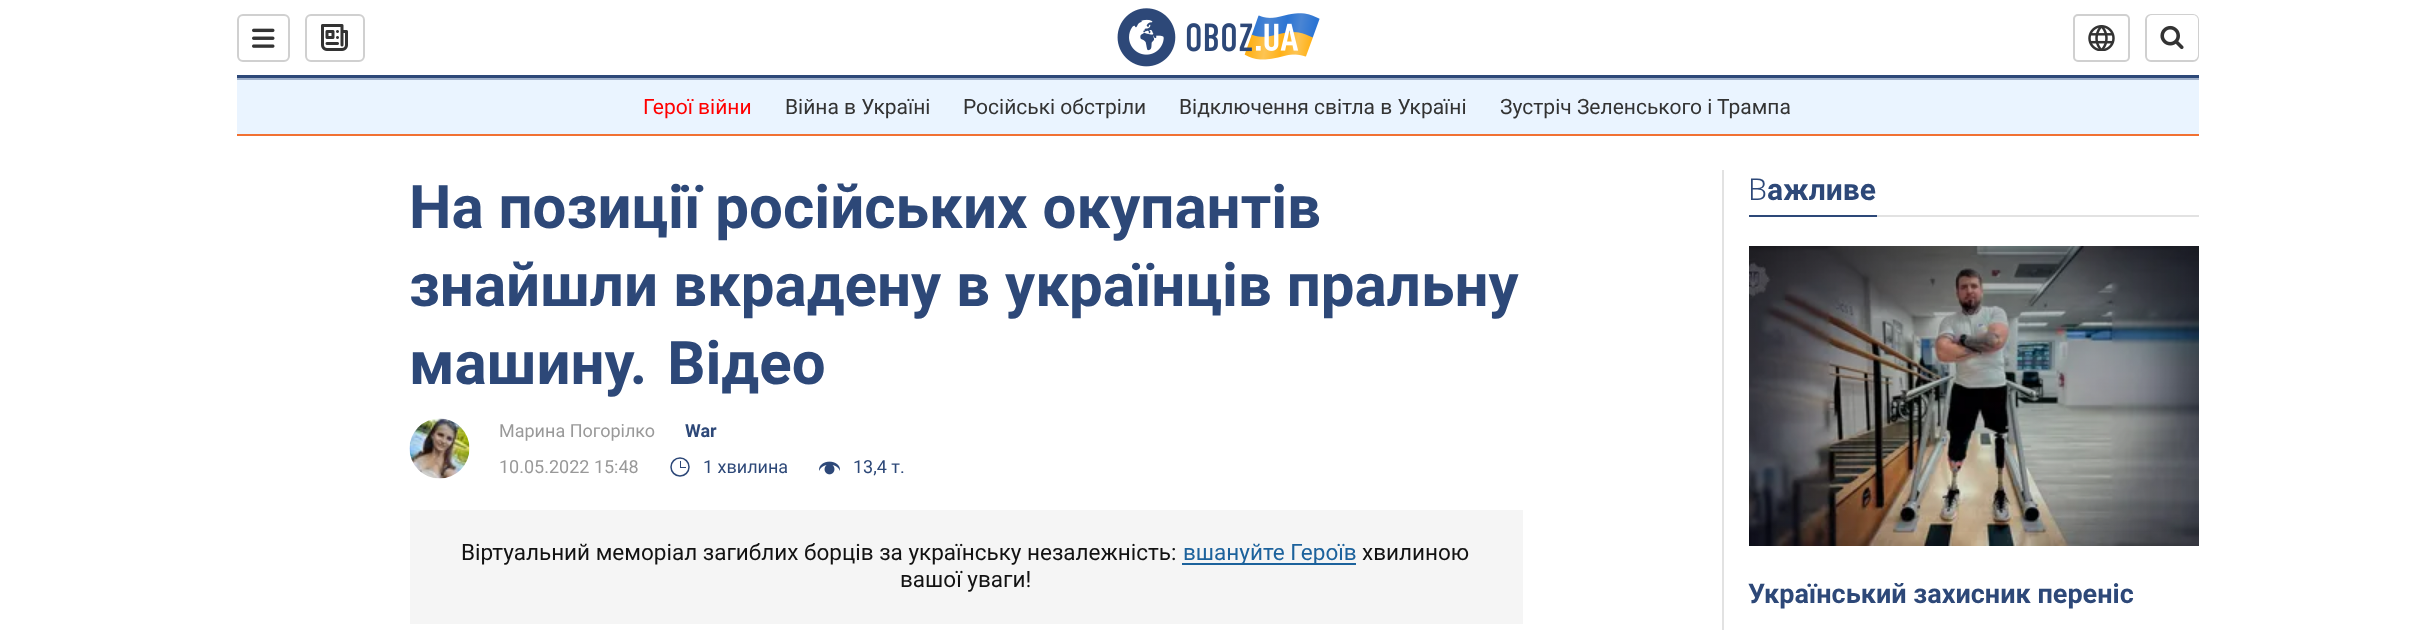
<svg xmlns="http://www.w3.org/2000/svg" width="2434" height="630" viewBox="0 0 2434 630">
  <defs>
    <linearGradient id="g1" gradientUnits="userSpaceOnUse" x1="1974" y1="246" x2="1974" y2="554"><stop offset="0" stop-color="#000" stop-opacity="0.3"/><stop offset="1" stop-color="#000" stop-opacity="0"/></linearGradient>
  </defs>
  <rect width="100%" height="100%" fill="#fff"/>
  <path d="M237 75h1962v3H237z" fill="#2d4878"/>
  <rect x="238" y="15" width="51" height="46" rx="5" fill="none" stroke="#d0d0d0" stroke-width="2"/>
  <image x="252" y="28" width="23" height="20" href="img/1.png"/>
  <rect x="306" y="15" width="58" height="46" rx="5" fill="none" stroke="#d0d0d0" stroke-width="2"/>
  <image x="321" y="24" width="27" height="27" href="img/2.png"/>
  <image x="1117" y="8" width="203" height="59" href="img/3.png"/>
  <rect x="2074" y="15" width="55" height="46" rx="4" fill="none" stroke="#d0d0d0" stroke-width="2"/>
  <image x="2088" y="25" width="27" height="26" href="img/4.png"/>
  <rect x="2146" y="15" width="52" height="46" rx="5" fill="none" stroke="#d0d0d0" stroke-width="2"/>
  <rect x="2147" y="15" width="51" height="45" rx="5" fill="#fff"/>
  <image x="2160" y="25" width="24" height="25" href="img/5.png"/>
  <path d="M237 80h1962v54H237z" fill="#eaf4ff"/>
  <path d="M237 78h1962v2H237z" fill="#9eafc9"/>
  <path d="M237 134h1962v2H237z" fill="#f17132"/>
  <image x="409" y="418" width="61" height="61" href="img/6.png"/>
  <circle cx="680" cy="467" r="9" fill="none" stroke="#2d4878" stroke-width="1.5"/>
  <path d="M680 467h6v1H680z" fill="#2d4878"/>
  <path d="M680 461h1v7H680z" fill="#2d4878"/>
  <image x="819" y="461" width="21" height="14" href="img/7.png"/>
  <path d="M410 510h1113v114H410z" fill="#f5f5f5"/>
  <path d="M1182 563h174v2H1182z" fill="#1c629c"/>
  <path d="M1722 170h2v460H1722z" fill="#e2e2e2"/>
  <path d="M1877 215h322v2H1877z" fill="#e2e2e2"/>
  <path d="M1749 215h128v2H1749z" fill="#2d4878"/>
  <image x="1749" y="246" width="450" height="300" href="img/8.png"/>
  <path d="M1749 246h450v286H1749z" fill="url(#g1)"/>
  <text x="643" y="114" font-family="Roboto" font-size="21" fill="#f00">Герої війни</text>
  <g font-family="Roboto" font-size="21" fill="#333">
    <text x="785" y="114">Війна в Україні</text>
    <text x="963" y="114">Російські обстріли</text>
    <text x="1179" y="114">Відключення світла в Україні</text>
    <text x="1500" y="114">Зустріч Зеленського і Трампа</text>
  </g>
  <g font-family="Roboto" font-size="60" font-weight="bold" fill="#2d4878">
    <text x="409" y="228">На позиції російських окупантів</text>
    <text x="409" y="306">знайшли вкрадену в українців пральну</text>
    <text x="409" y="384" word-spacing="5">машину. Відео</text>
  </g>
  <text x="499" y="437" font-family="Roboto" font-size="18" fill="#999">Марина Погорілко</text>
  <text x="685" y="437" font-family="Roboto" font-size="18" font-weight="bold" fill="#2d4878">War</text>
  <text x="499" y="473" font-family="Roboto" font-size="18" fill="#999">10.05.2022 15:48</text>
  <g font-family="Roboto" font-size="18" fill="#2d4878">
    <text x="703" y="473">1 хвилина</text>
    <text x="853" y="473">13,4 т.</text>
  </g>
  <text x="461" y="560" font-family="Roboto" font-size="22.5" fill="#121212">Віртуальний меморіал загиблих борців за українську незалежність:</text>
  <text x="1183" y="560" font-family="Roboto" font-size="22.5" fill="#1c629c">вшануйте Героїв</text>
  <g font-family="Roboto" font-size="22.5" fill="#121212">
    <text x="1362" y="560">хвилиною</text>
    <text x="900" y="587">вашої уваги!</text>
  </g>
  <text x="1748" y="200" font-family="Noto Sans" font-size="30" font-weight="300" fill="#2d4878">В</text>
  <text x="1767" y="200" font-family="Roboto" font-size="30" font-weight="bold" fill="#2d4878">ажливе</text>
  <text x="1748" y="603" font-family="Roboto" font-size="27" font-weight="bold" fill="#2d4878">Український захисник переніс</text>
</svg>
